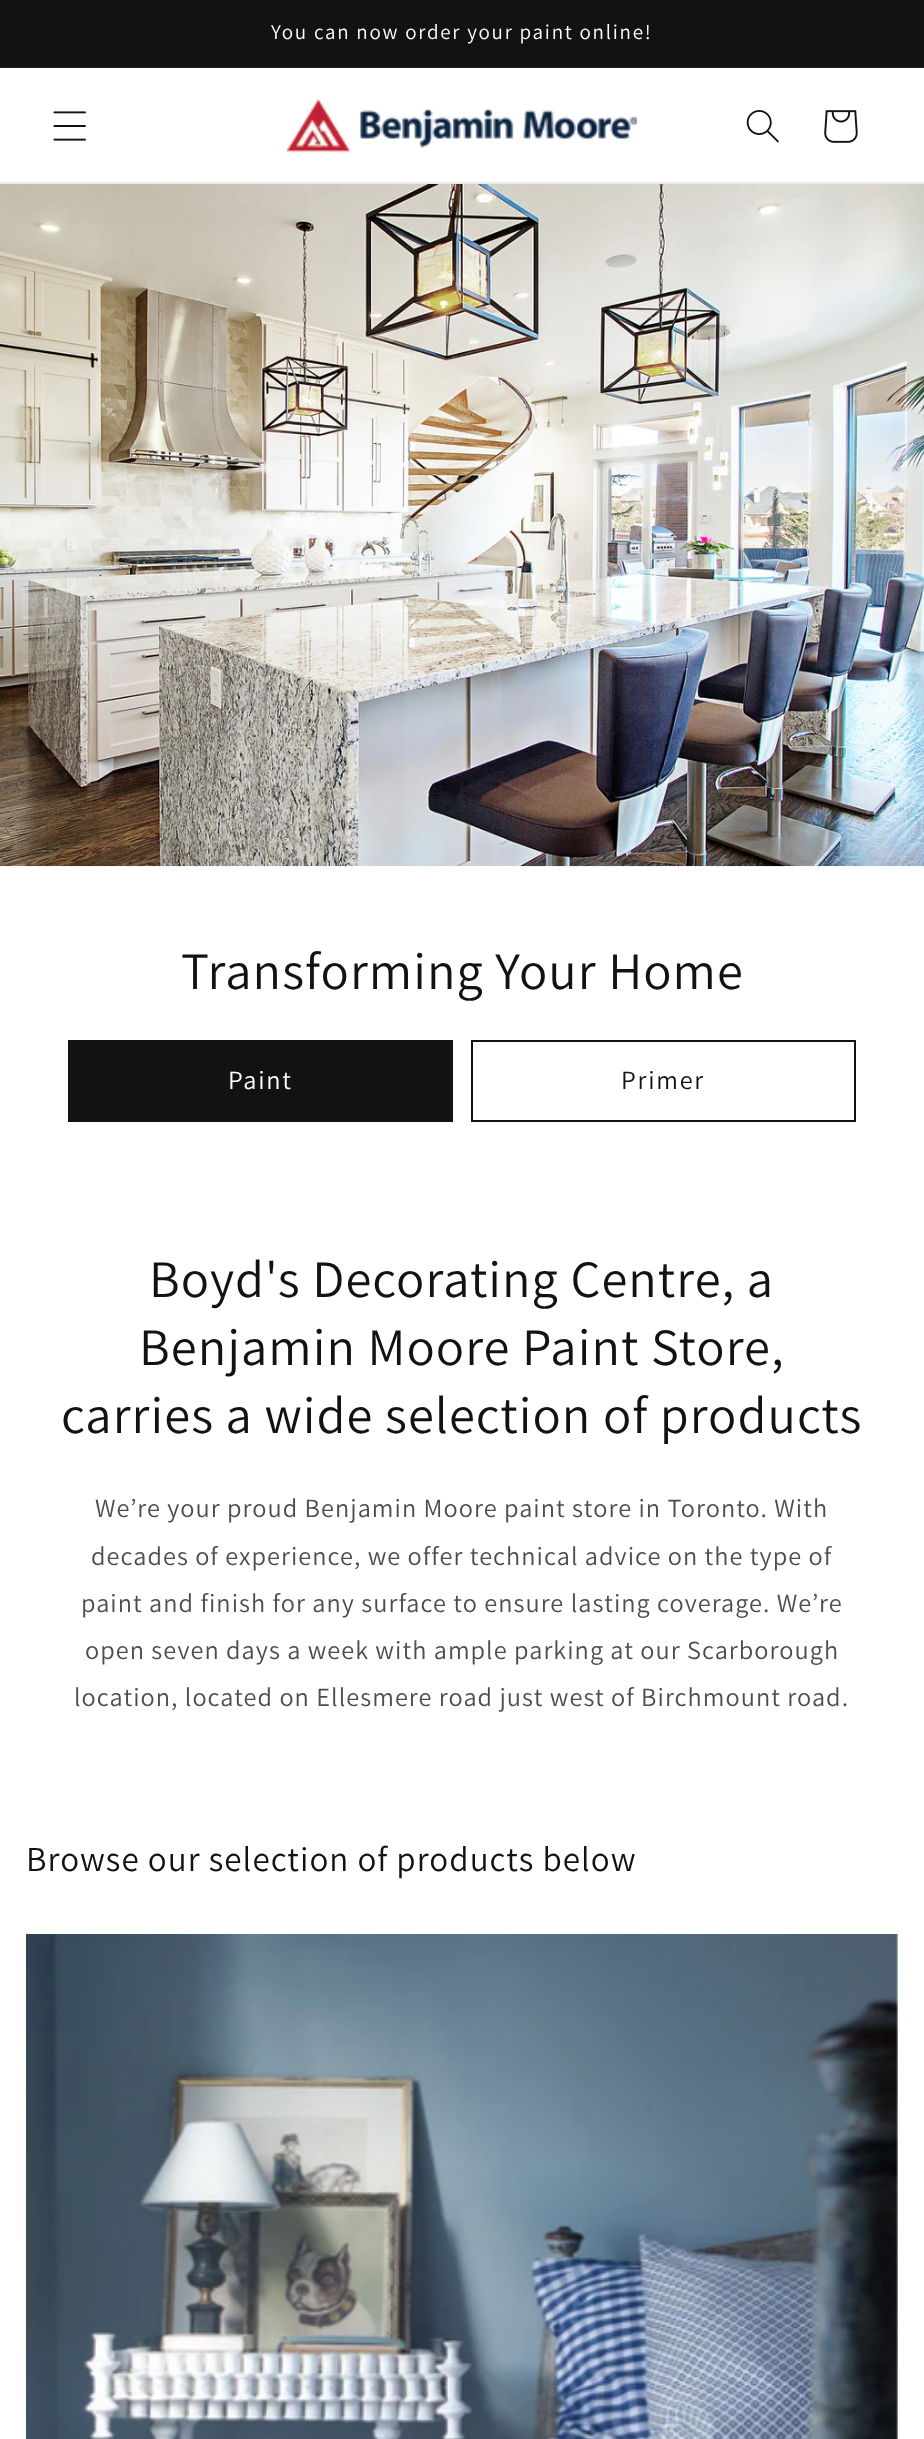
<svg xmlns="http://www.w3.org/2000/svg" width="924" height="2439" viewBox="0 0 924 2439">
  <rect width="100%" height="100%" fill="#fff"/>
  <path d="M0 0h924v67H0z" fill="#121212"/>
  <path d="M0 67h924v1H0z" fill="#252525"/>
  <path d="M0 182h924v2H0z" fill="#ececec"/>
  <image x="53" y="111" width="33" height="30" href="img/1.png"/>
  <image x="287" y="99" width="350" height="54" href="img/2.png"/>
  <image x="746" y="110" width="33" height="33" href="img/3.png"/>
  <image x="824" y="110" width="34" height="33" href="img/4.png"/>
  <image x="0" y="184" width="924" height="683" href="img/5.png"/>
  <path d="M68 1040h385v82H68z" fill="#121212"/>
  <path d="M472 1041h383v80H472z" fill="none" stroke="#121212" stroke-width="2"/>
  <path d="M896 1934h2v505H896z" fill="#f3f3f3"/>
  <image x="26" y="1934" width="872" height="505" href="img/6.png"/>
  <text x="271" y="39" font-family="Assistant" font-size="21" letter-spacing="1.75" fill="#fff">You can now order your paint online!</text>
  <text x="181" y="989" font-family="Assistant" font-size="52.5" letter-spacing="1.05" fill="#121212">Transforming Your Home</text>
  <text x="228" y="1089" font-family="Assistant" font-size="26.25" letter-spacing="1.75" fill="#fff">Paint</text>
  <text x="621" y="1089" font-family="Assistant" font-size="26.25" letter-spacing="1.75" fill="#121212">Primer</text>
  <g font-family="Assistant" font-size="52.5" letter-spacing="1.05" fill="#121212">
    <text x="149" y="1297">Boyd's Decorating Centre, a</text>
    <text x="139" y="1365">Benjamin Moore Paint Store,</text>
    <text x="61" y="1433">carries a wide selection of products</text>
  </g>
  <g font-family="Assistant" font-size="26.25" letter-spacing="1.05" fill="#4d4d4d">
    <text x="95" y="1517">We’re your proud Benjamin Moore paint store in Toronto. With</text>
    <text x="91" y="1565">decades of experience, we offer technical advice on the type of</text>
    <text x="81" y="1612">paint and finish for any surface to ensure lasting coverage. We’re</text>
    <text x="85" y="1659">open seven days a week with ample parking at our Scarborough</text>
    <text x="74" y="1706">location, located on Ellesmere road just west of Birchmount road.</text>
  </g>
  <text x="26" y="1871" font-family="Assistant" font-size="35" letter-spacing="1.05" fill="#121212">Browse our selection of products below</text>
</svg>
